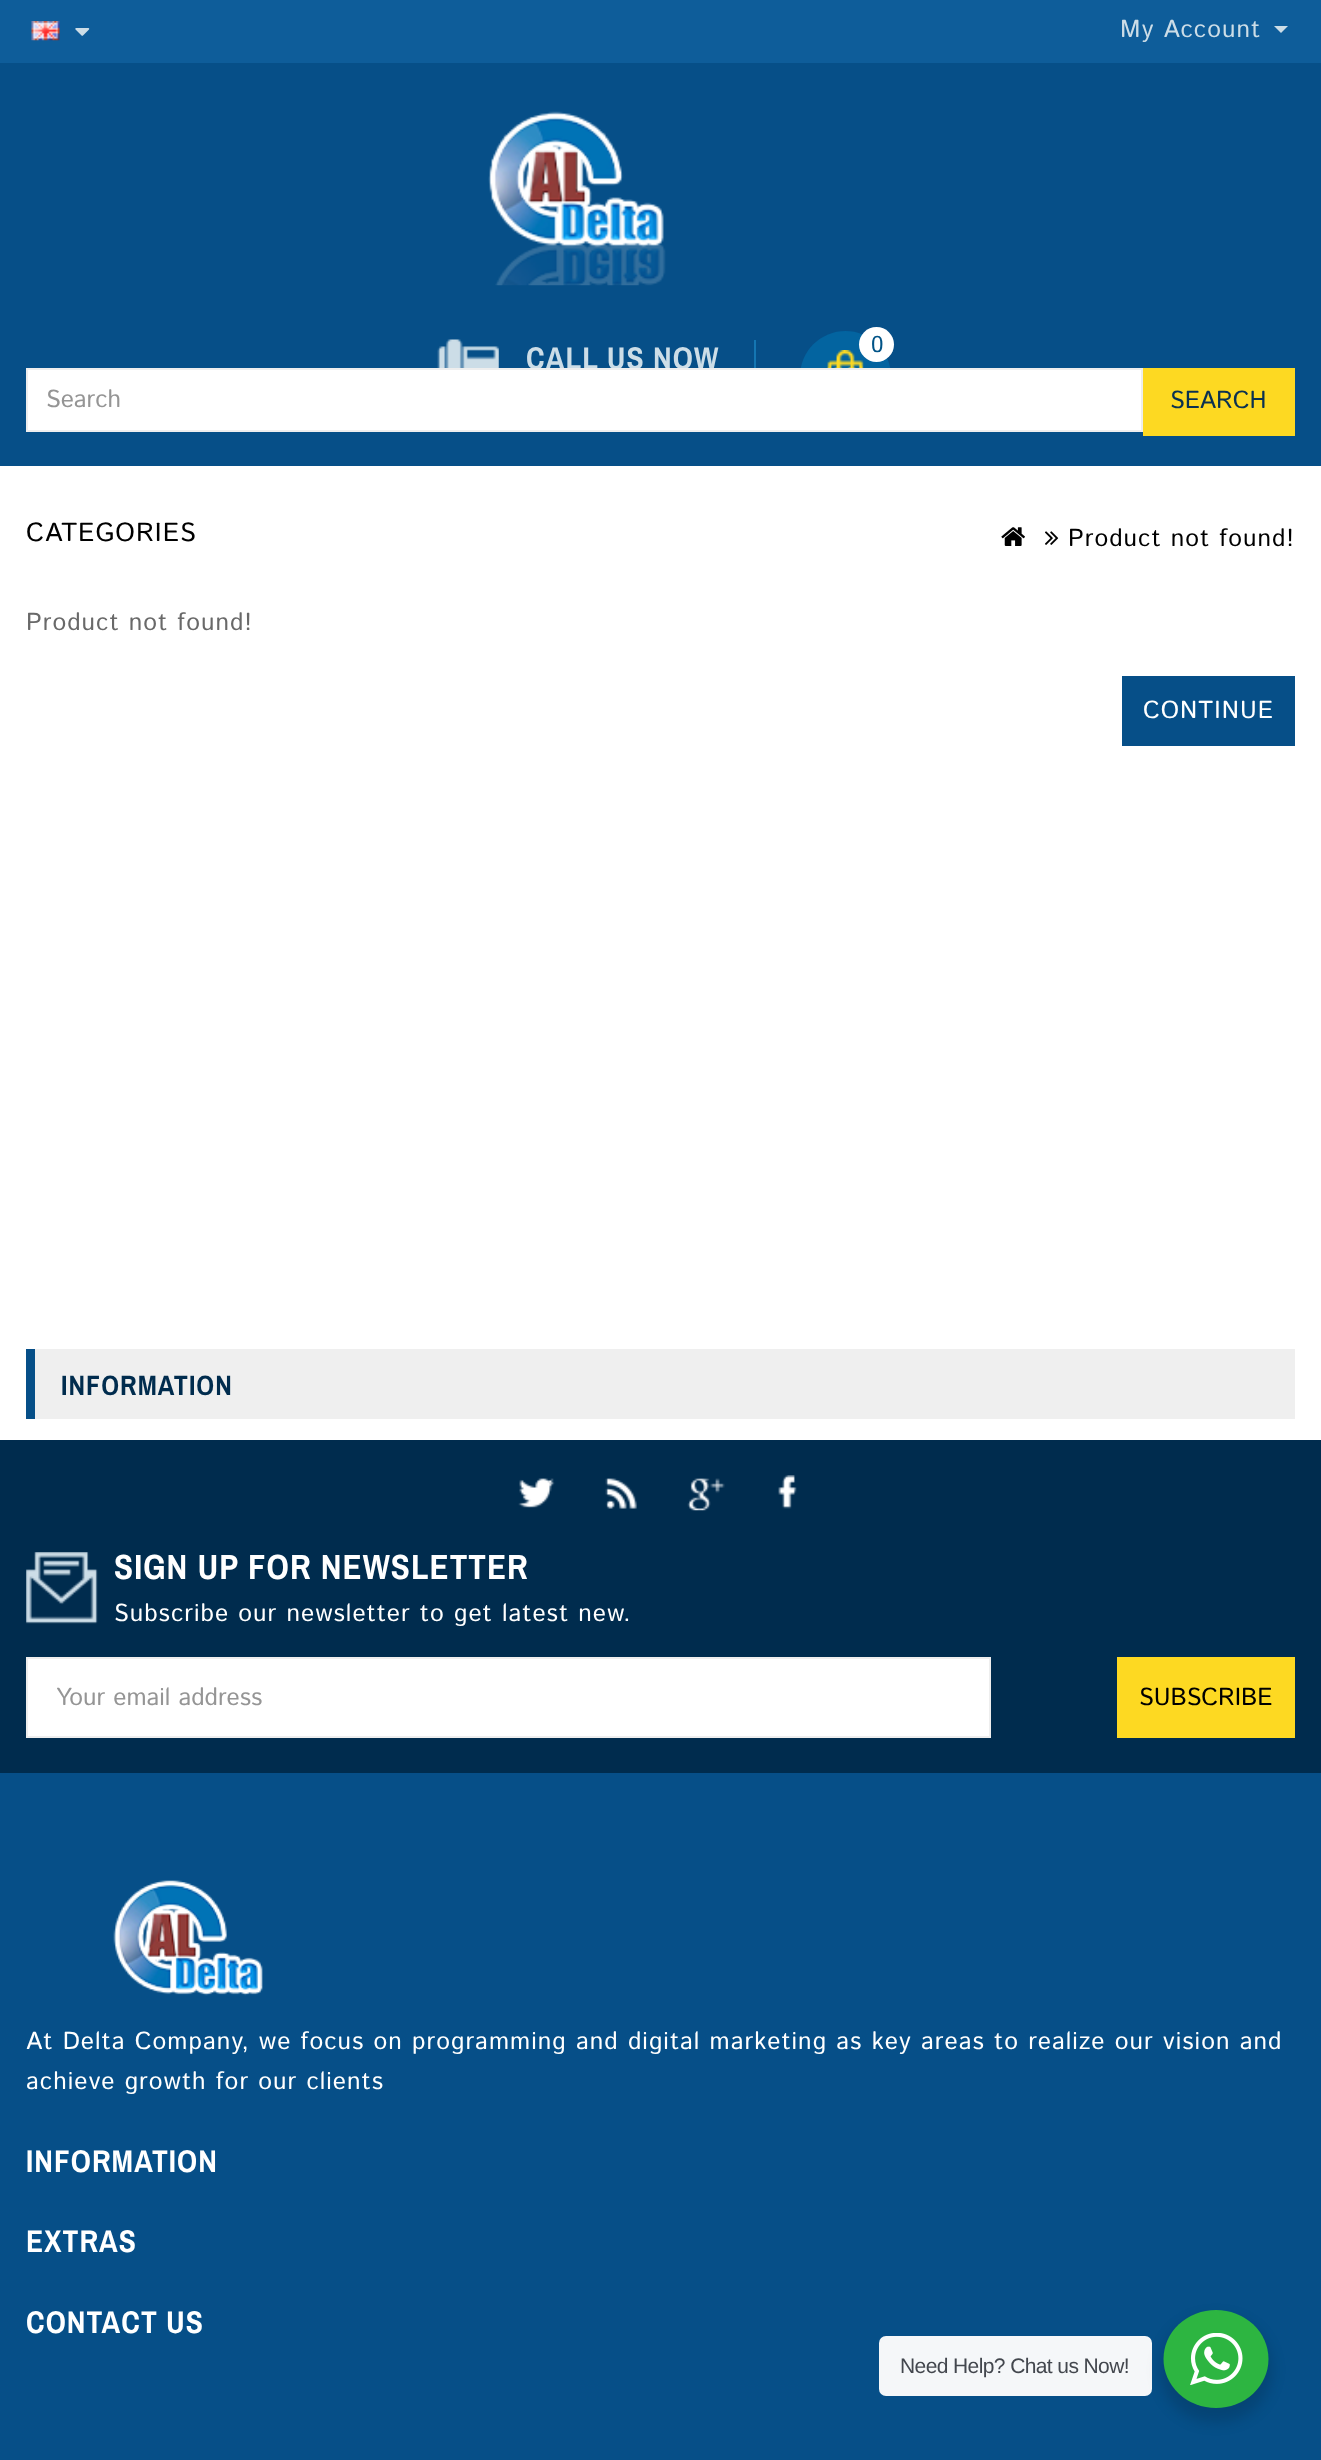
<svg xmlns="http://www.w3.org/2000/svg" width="1321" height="2460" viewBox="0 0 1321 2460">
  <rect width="100%" height="100%" fill="#fff"/>
  <path d="M0 0h1321v63H0z" fill="#0e5d9a"/>
  <image x="31" y="21" width="29" height="20" href="img/1.png"/>
  <image x="75" y="28" width="15" height="8" href="img/2.png"/>
  <path d="M1274 26H1288L1281 33Z" fill="#ccdde7"/>
  <path d="M0 63h1321v403H0z" fill="#064f88"/>
  <image x="488" y="111" width="178" height="175" href="img/3.png"/>
  <circle cx="845.5" cy="376.5" r="45.5" fill="#0364a0"/>
  <image x="827" y="350" width="37" height="18" href="img/4.png"/>
  <circle cx="876.5" cy="344.5" r="17.5" fill="#fff"/>
  <image x="437" y="339" width="62" height="29" href="img/5.png"/>
  <path d="M754 340h2v28H754z" fill="#1476b2"/>
  <path d="M1143 368h152v68H1143z" fill="#fdd922"/>
  <image x="1001" y="527" width="24" height="19" href="img/6.png"/>
  <image x="1045" y="531" width="14" height="14" href="img/7.png"/>
  <path d="M1122 676h173v70H1122z" fill="#064f88"/>
  <path d="M35 1349h1260v70H35z" fill="#efefef"/>
  <path d="M26 1349h9v70H26z" fill="#064f88"/>
  <path d="M0 1440h1321v333H0z" fill="#002c4e"/>
  <image x="518" y="1478" width="37" height="30" href="img/8.png"/>
  <image x="605" y="1478" width="32" height="31" href="img/9.png"/>
  <image x="687" y="1478" width="38" height="33" href="img/10.png"/>
  <image x="778" y="1475" width="19" height="34" href="img/11.png"/>
  <image x="26" y="1552" width="72" height="72" href="img/12.png"/>
  <path d="M27 1658h963v79H27z" fill="#fff" stroke="#eee" stroke-width="2"/>
  <path d="M1117 1657h178v81H1117z" fill="#fdd922"/>
  <path d="M0 1773h1321v687H0z" fill="#064f88"/>
  <image x="113" y="1880" width="150" height="116" href="img/13.png"/>
  <rect x="879" y="2336" width="273" height="60" rx="7" fill="#f5f7f9"/>
  <rect x="1160" y="2317" width="112" height="105" rx="52.5" fill="#00000024" filter="blur(7px)"/>
  <ellipse cx="1216" cy="2359" rx="52.5" ry="49" fill="#2db541"/>
  <image x="1190" y="2333" width="53" height="52" href="img/14.png"/>
  <text x="1120" y="37" font-family="Istok Web" font-size="24.5" letter-spacing="1.05" fill="#ccdde7">My Account</text>
  <text x="871" y="352" font-family="Istok Web" font-size="23" fill="#005387">0</text>
  <text x="526" y="369" font-family="Archivo Narrow" font-size="31.5" font-weight="bold" letter-spacing="1.05" fill="#ccdde7">CALL US NOW</text>
  <path d="M27 369h1115v62H27z" fill="#fff" stroke="#eee" stroke-width="2"/>
  <text x="46" y="407" font-family="Istok Web" font-size="24.5" fill="#959595">Search</text>
  <text x="1170" y="408" font-family="Istok Web" font-size="24.5" fill="#0a3151">SEARCH</text>
  <text x="26" y="541" font-family="Istok Web" font-size="26.25" letter-spacing="1.05" fill="#000">CATEGORIES</text>
  <text x="1068" y="546" font-family="Istok Web" font-size="24.5" letter-spacing="1.05" fill="#000">Product not found!</text>
  <text x="26" y="630" font-family="Istok Web" font-size="24.5" letter-spacing="1.05" fill="#696969">Product not found!</text>
  <text x="1143" y="718" font-family="Istok Web" font-size="24.5" letter-spacing="1.05" fill="#fff">CONTINUE</text>
  <text x="61" y="1395" font-family="Archivo Narrow" font-size="28" font-weight="bold" letter-spacing="1.05" fill="#002c4e">INFORMATION</text>
  <text x="114" y="1579" font-family="Archivo Narrow" font-size="35" font-weight="bold" letter-spacing="1.05" fill="#fff">SIGN UP FOR NEWSLETTER</text>
  <text x="114" y="1621" font-family="Istok Web" font-size="24.5" letter-spacing="1.05" fill="#fff">Subscribe our newsletter to get latest new.</text>
  <text x="56" y="1705" font-family="Istok Web" font-size="24.5" fill="#959595">Your email address</text>
  <text x="1139" y="1705" font-family="Istok Web" font-size="24.5" fill="#000">SUBSCRIBE</text>
  <g font-family="Istok Web" font-size="24.5" letter-spacing="1.05" fill="#fff">
    <text x="26" y="2049">At Delta Company, we focus on programming and digital marketing as key areas to realize our vision and</text>
    <text x="26" y="2089">achieve growth for our clients</text>
  </g>
  <g font-family="Archivo Narrow" font-size="31.5" font-weight="bold" letter-spacing="1.05" fill="#fff">
    <text x="26" y="2172">INFORMATION</text>
    <text x="26" y="2252">EXTRAS</text>
    <text x="26" y="2333">CONTACT US</text>
  </g>
  <text x="900" y="2373" font-family="Liberation Sans" font-size="21" letter-spacing="-0.6" fill="#43474e">Need Help? Chat us Now!</text>
</svg>
